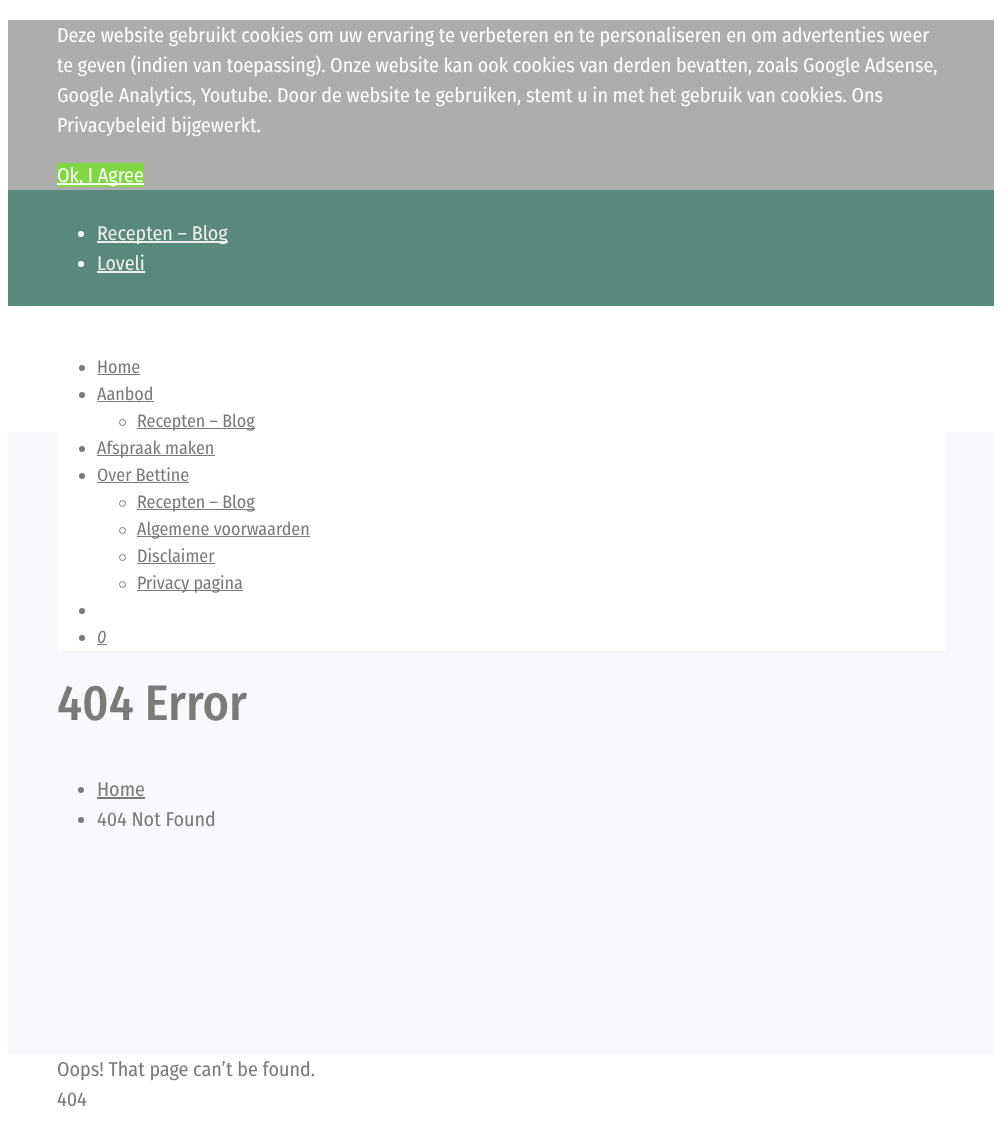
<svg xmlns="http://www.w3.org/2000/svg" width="1002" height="1140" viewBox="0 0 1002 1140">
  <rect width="100%" height="100%" fill="#fff"/>
  <path d="M8 20h986v170H8z" fill="#adadad"/>
  <path d="M57 163h87v24H57z" fill="#81d742"/>
  <path d="M57 183h87v2H57z" fill="#fff"/>
  <path d="M8 190h986v116H8z" fill="#58897c"/>
  <circle cx="81" cy="234" r="3" fill="#fff"/>
  <path d="M97 241h131v2H97z" fill="#eee"/>
  <circle cx="81" cy="264" r="3" fill="#fff"/>
  <path d="M97 271h48v2H97z" fill="#eee"/>
  <path d="M8 432h986v622H8z" fill="#f7f9fd"/>
  <path d="M57 432h888v219H57z" fill="#fff"/>
  <circle cx="82" cy="368" r="3" fill="#7a7a7a"/>
  <path d="M97 374h43v1H97z" fill="#7a7a7a"/>
  <circle cx="82" cy="395" r="3" fill="#7a7a7a"/>
  <path d="M97 401h57v1H97z" fill="#7a7a7a"/>
  <circle cx="122.5" cy="422.5" r="3" fill="none" stroke="#7a7a7a"/>
  <path d="M137 428h118v1H137z" fill="#7a7a7a"/>
  <circle cx="82" cy="449" r="3" fill="#7a7a7a"/>
  <path d="M97 455h118v1H97z" fill="#7a7a7a"/>
  <circle cx="82" cy="476" r="3" fill="#7a7a7a"/>
  <path d="M97 482h92v1H97z" fill="#7a7a7a"/>
  <circle cx="122.5" cy="503.5" r="3" fill="none" stroke="#7a7a7a"/>
  <path d="M137 509h118v1H137z" fill="#7a7a7a"/>
  <circle cx="122.5" cy="530.5" r="3" fill="none" stroke="#7a7a7a"/>
  <path d="M137 536h173v1H137z" fill="#7a7a7a"/>
  <circle cx="122.5" cy="557.5" r="3" fill="none" stroke="#7a7a7a"/>
  <path d="M137 563h78v1H137z" fill="#7a7a7a"/>
  <circle cx="122.5" cy="584.5" r="3" fill="none" stroke="#7a7a7a"/>
  <path d="M137 590h106v1H137z" fill="#7a7a7a"/>
  <circle cx="82" cy="611" r="3" fill="#7a7a7a"/>
  <circle cx="82" cy="638" r="3" fill="#7a7a7a"/>
  <path d="M97 644h10v1H97z" fill="#7a7a7a"/>
  <circle cx="81" cy="790" r="3" fill="#7a7a7a"/>
  <path d="M97 797h48v2H97z" fill="#7a7a7a"/>
  <circle cx="81" cy="820" r="3" fill="#7a7a7a"/>
  <g font-family="Fira Sans Condensed" font-size="20" fill="#fff">
    <text x="57" y="42">Deze website gebruikt cookies om uw ervaring te verbeteren en te personaliseren en om advertenties weer</text>
    <text x="57" y="72">te geven (indien van toepassing). Onze website kan ook cookies van derden bevatten, zoals Google Adsense,</text>
    <text x="57" y="102">Google Analytics, Youtube. Door de website te gebruiken, stemt u in met het gebruik van cookies. Ons</text>
    <text x="57" y="132">Privacybeleid bijgewerkt.</text>
    <text x="57" y="182">Ok, I Agree</text>
  </g>
  <g font-family="Fira Sans Condensed" font-size="20" fill="#eee">
    <text x="97" y="240">Recepten – Blog</text>
    <text x="97" y="270">Loveli</text>
  </g>
  <g font-family="Fira Sans Condensed" font-size="18" fill="#7a7a7a">
    <text x="97" y="373">Home</text>
    <text x="97" y="400">Aanbod</text>
    <text x="137" y="427">Recepten – Blog</text>
    <text x="97" y="454">Afspraak maken</text>
    <text x="97" y="481">Over Bettine</text>
    <text x="137" y="508">Recepten – Blog</text>
    <text x="137" y="535">Algemene voorwaarden</text>
    <text x="137" y="562">Disclaimer</text>
    <text x="137" y="589">Privacy pagina</text>
  </g>
  <text x="97" y="643" font-family="Fira Sans Condensed" font-size="18" font-style="italic" fill="#7a7a7a">0</text>
  <text x="57" y="720" font-family="Fira Sans Condensed" font-size="50" font-weight="500" fill="#7a7a7a">404 Error</text>
  <g font-family="Fira Sans Condensed" font-size="20" fill="#7a7a7a">
    <text x="97" y="796">Home</text>
    <text x="97" y="826">404 Not Found</text>
    <text x="57" y="1076">Oops! That page can’t be found.</text>
    <text x="57" y="1106">404</text>
  </g>
</svg>
